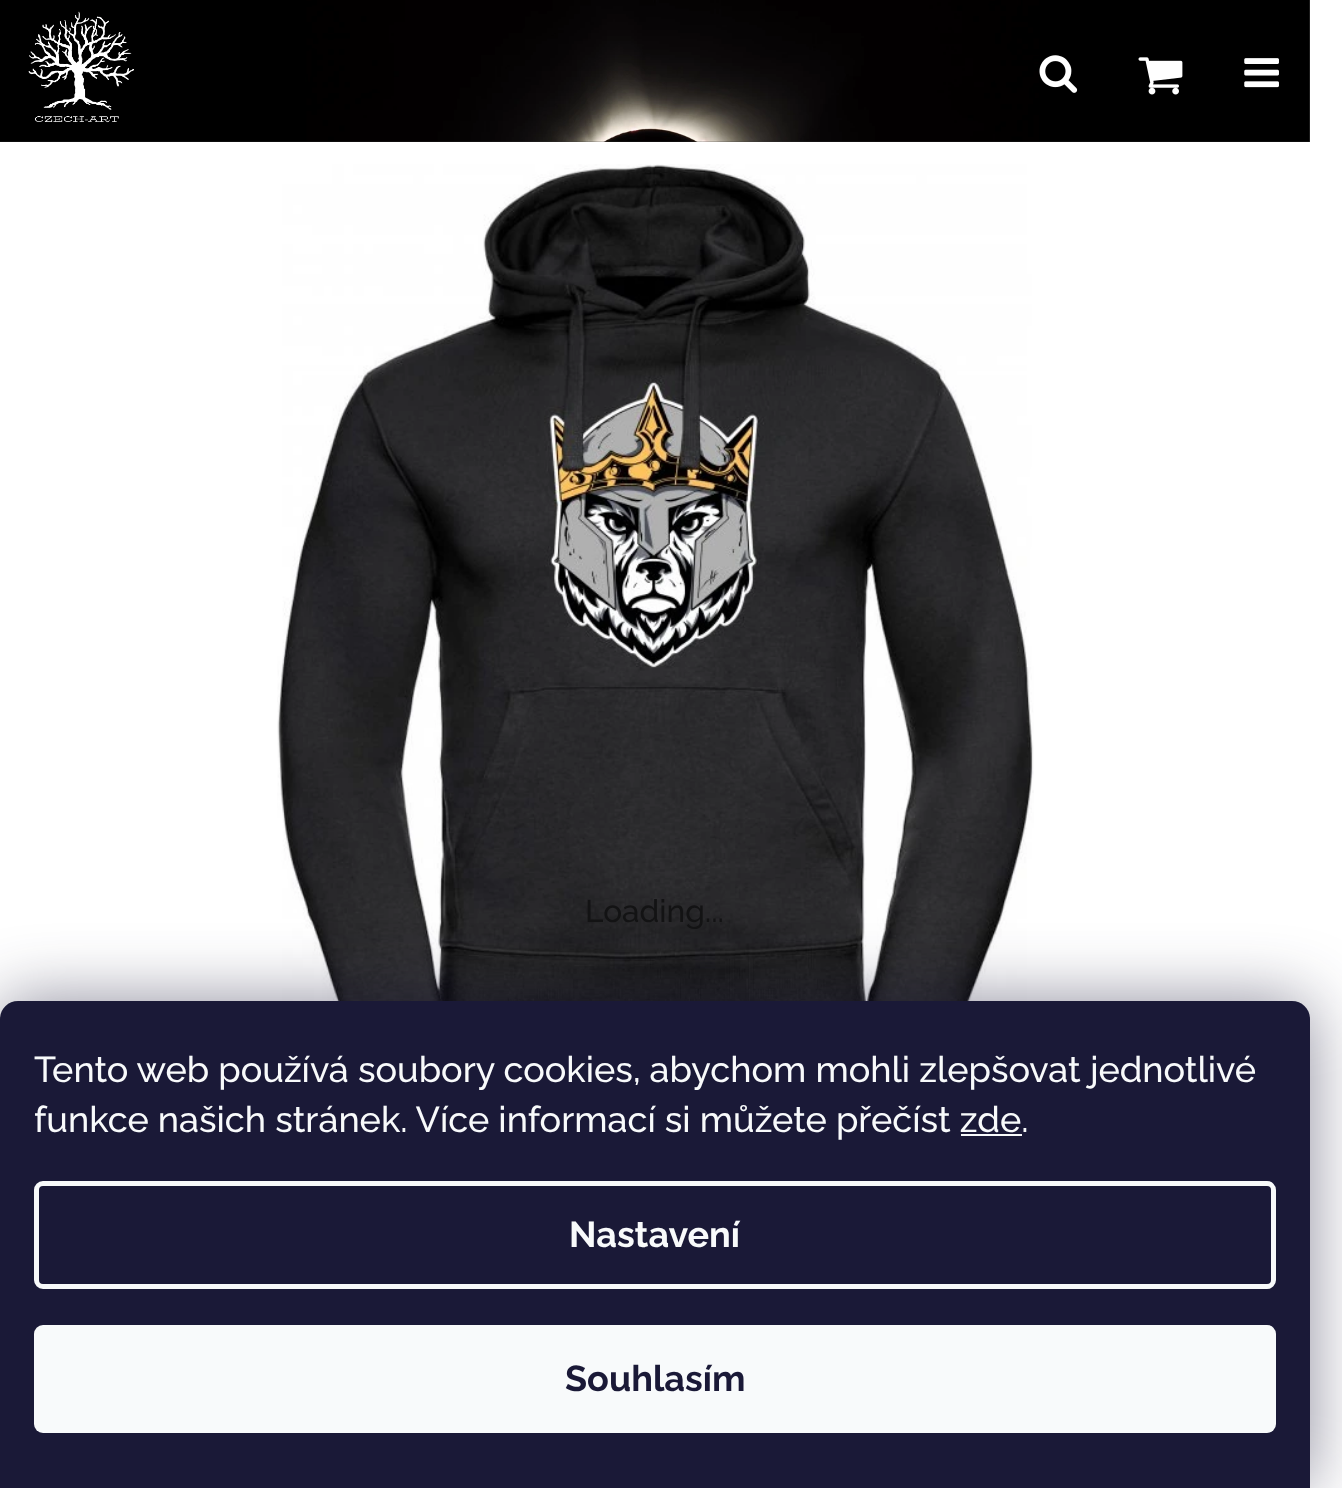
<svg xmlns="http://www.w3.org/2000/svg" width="1342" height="1488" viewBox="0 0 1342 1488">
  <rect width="100%" height="100%" fill="#fff"/>
  <path d="M0 0h1310v142H0z" fill="#393939"/>
  <image x="0" y="0" width="1310" height="142" href="img/1.png"/>
  <image x="28" y="11" width="106" height="112" href="img/2.png"/>
  <image x="1039" y="55" width="39" height="38" href="img/3.png"/>
  <image x="1138" y="57" width="45" height="38" href="img/4.png"/>
  <image x="1244" y="58" width="35" height="30" href="img/5.png"/>
  <image x="277" y="164" width="757" height="837" href="img/6.png"/>
  <rect y="1001" width="1310" height="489" rx="18" fill="#1b193980" filter="blur(34px)"/>
  <path d="M18 1001H1292C1302 1001 1310 1009 1310 1019V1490H0V1019C0 1009 8 1001 18 1001Z" fill="#1a1937"/>
  <path d="M961 1134h61v2H961z" fill="#f8fafb"/>
  <rect x="36.5" y="1183.5" width="1237" height="103" rx="6.5" fill="none" stroke="#f8fafb" stroke-width="5"/>
  <rect x="34" y="1325" width="1242" height="108" rx="9" fill="#f8fafb"/>
  <text x="585" y="922" font-family="Raleway" font-size="31.5" font-weight="500" fill="#131314">Loading...</text>
  <g font-family="Raleway" font-size="36" font-weight="500" fill="#f8fafb">
    <text x="34" y="1082">Tento web používá soubory cookies, abychom mohli zlepšovat jednotlivé</text>
    <text x="34" y="1132">funkce našich stránek. Více informací si můžete přečíst zde.</text>
  </g>
  <text x="569" y="1247" font-family="Raleway" font-size="36" font-weight="bold" fill="#f8fafb">Nastavení</text>
  <text x="565" y="1391" font-family="Raleway" font-size="36" font-weight="bold" fill="#1a1937">Souhlasím</text>
</svg>
